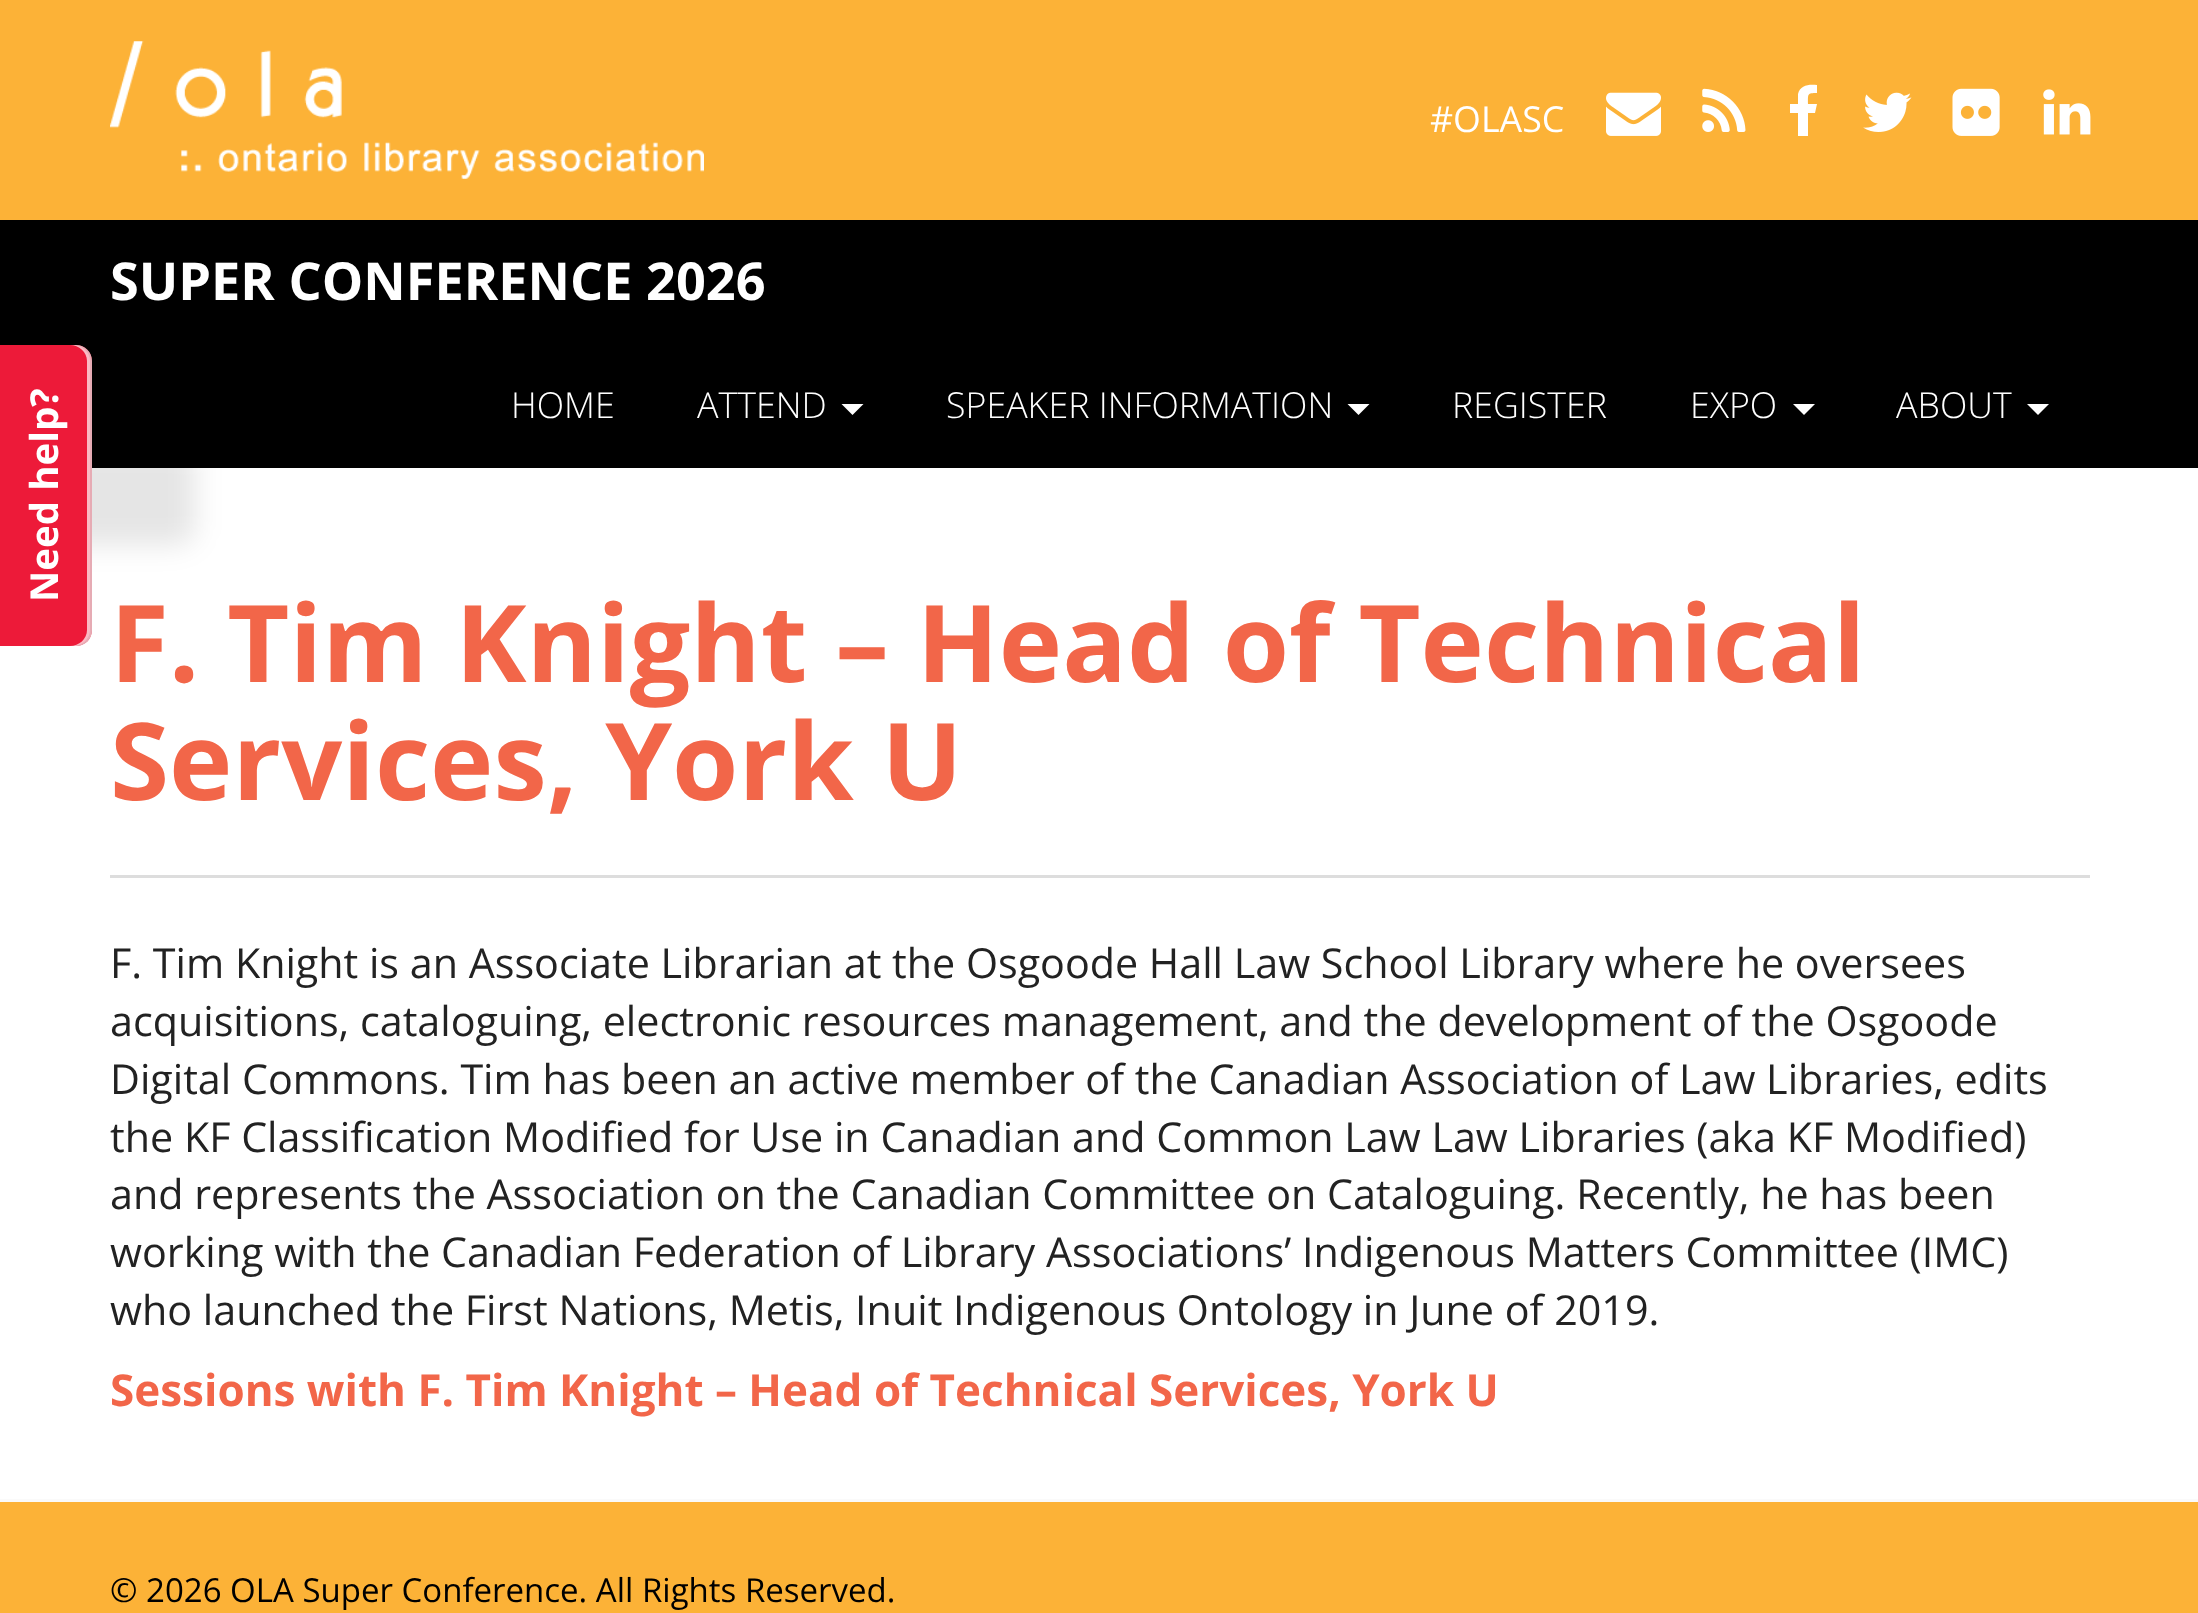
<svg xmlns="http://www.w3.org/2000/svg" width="2198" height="1613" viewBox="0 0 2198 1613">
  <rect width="100%" height="100%" fill="#fff"/>
  <path d="M0 0h2198v220H0z" fill="#fcb237"/>
  <image x="110" y="41" width="594" height="138" href="img/1.png"/>
  <image x="1606" y="92" width="55" height="44" href="img/2.png"/>
  <image x="1702" y="88" width="44" height="44" href="img/3.png"/>
  <path d="M1817 85V93C1807 93 1808 94 1808 104H1817L1815 113H1808V136H1798V113H1790V104H1798V94C1800 85 1809 84 1817 85Z" fill="#fff"/>
  <image x="1863" y="92" width="49" height="40" href="img/4.png"/>
  <image x="1952" y="88" width="48" height="48" href="img/5.png"/>
  <image x="2043" y="89" width="48" height="46" href="img/6.png"/>
  <path d="M0 220h2198v248H0z" fill="#000"/>
  <path d="M841.5 404H863.5L852.5 415Z" fill="#fff"/>
  <path d="M1347.5 404H1369.5L1358.5 415Z" fill="#fff"/>
  <path d="M1793 404H1815L1804 415Z" fill="#fff"/>
  <path d="M2027 404H2049L2038 415Z" fill="#fff"/>
  <rect x="-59" y="446" width="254" height="99" rx="17" fill="#0000001a" filter="blur(14px)"/>
  <path d="M-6 646V345H76C85 345 92 352 92 361V630C92 639 85 646 76 646Z" fill="#ed1a39"/>
  <path d="M-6 646H76C85 646 92 639 92 630V361C92 352 85 345 76 345H-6H70C79 345 87 352 87 361V630C87 639 79 646 70 646Z" fill="#ffffffb3"/>
  <path d="M-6 646H76C85 646 92 639 92 630V361C92 352 85 345 76 345H-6H73C82 345 90 352 90 361V630C90 639 82 646 73 646Z" fill="#00000014"/>
  <path d="M110 875h1980v3H110z" fill="#ddd"/>
  <path d="M0 1499h2198v3H0z" fill="#fafafa"/>
  <path d="M0 1502h2198v111H0z" fill="#fcb237"/>
  <text x="1430" y="132" font-family="Open Sans" font-size="35.75" fill="#fff">#OLASC</text>
  <text x="110" y="300" font-family="Open Sans" font-size="52.25" font-weight="bold" fill="#fff">SUPER CONFERENCE 2026</text>
  <g font-family="Open Sans" font-size="35.75" font-weight="300" fill="#fff">
    <text x="511" y="418">HOME</text>
    <text x="697" y="418">ATTEND</text>
    <text x="946" y="418">SPEAKER INFORMATION</text>
    <text x="1452" y="418">REGISTER</text>
    <text x="1690" y="418">EXPO</text>
    <text x="1896" y="418">ABOUT</text>
  </g>
  <text x="58" y="602" transform="rotate(-90 58 602)" font-family="Open Sans" font-size="38.5" font-weight="bold" fill="#fff">Need help?</text>
  <g font-family="Open Sans" font-size="107.25" font-weight="bold" fill="#f26649">
    <text x="110" y="682">F. Tim Knight – Head of Technical</text>
    <text x="110" y="800">Services, York U</text>
  </g>
  <g font-family="Open Sans" font-size="41.25" fill="#222">
    <text x="110" y="978">F. Tim Knight is an Associate Librarian at the Osgoode Hall Law School Library where he oversees</text>
    <text x="110" y="1036">acquisitions, cataloguing, electronic resources management, and the development of the Osgoode</text>
    <text x="110" y="1094">Digital Commons. Tim has been an active member of the Canadian Association of Law Libraries, edits</text>
    <text x="110" y="1152">the KF Classification Modified for Use in Canadian and Common Law Law Libraries (aka KF Modified)</text>
    <text x="110" y="1209">and represents the Association on the Canadian Committee on Cataloguing. Recently, he has been</text>
    <text x="110" y="1267">working with the Canadian Federation of Library Associations’ Indigenous Matters Committee (IMC)</text>
    <text x="110" y="1325">who launched the First Nations, Metis, Inuit Indigenous Ontology in June of 2019.</text>
  </g>
  <text x="110" y="1406" font-family="Open Sans" font-size="44" font-weight="bold" fill="#f26649">Sessions with F. Tim Knight – Head of Technical Services, York U</text>
  <text x="110" y="1602" font-family="Open Sans" font-size="33" fill="#000">© 2026 OLA Super Conference. All Rights Reserved.</text>
</svg>
